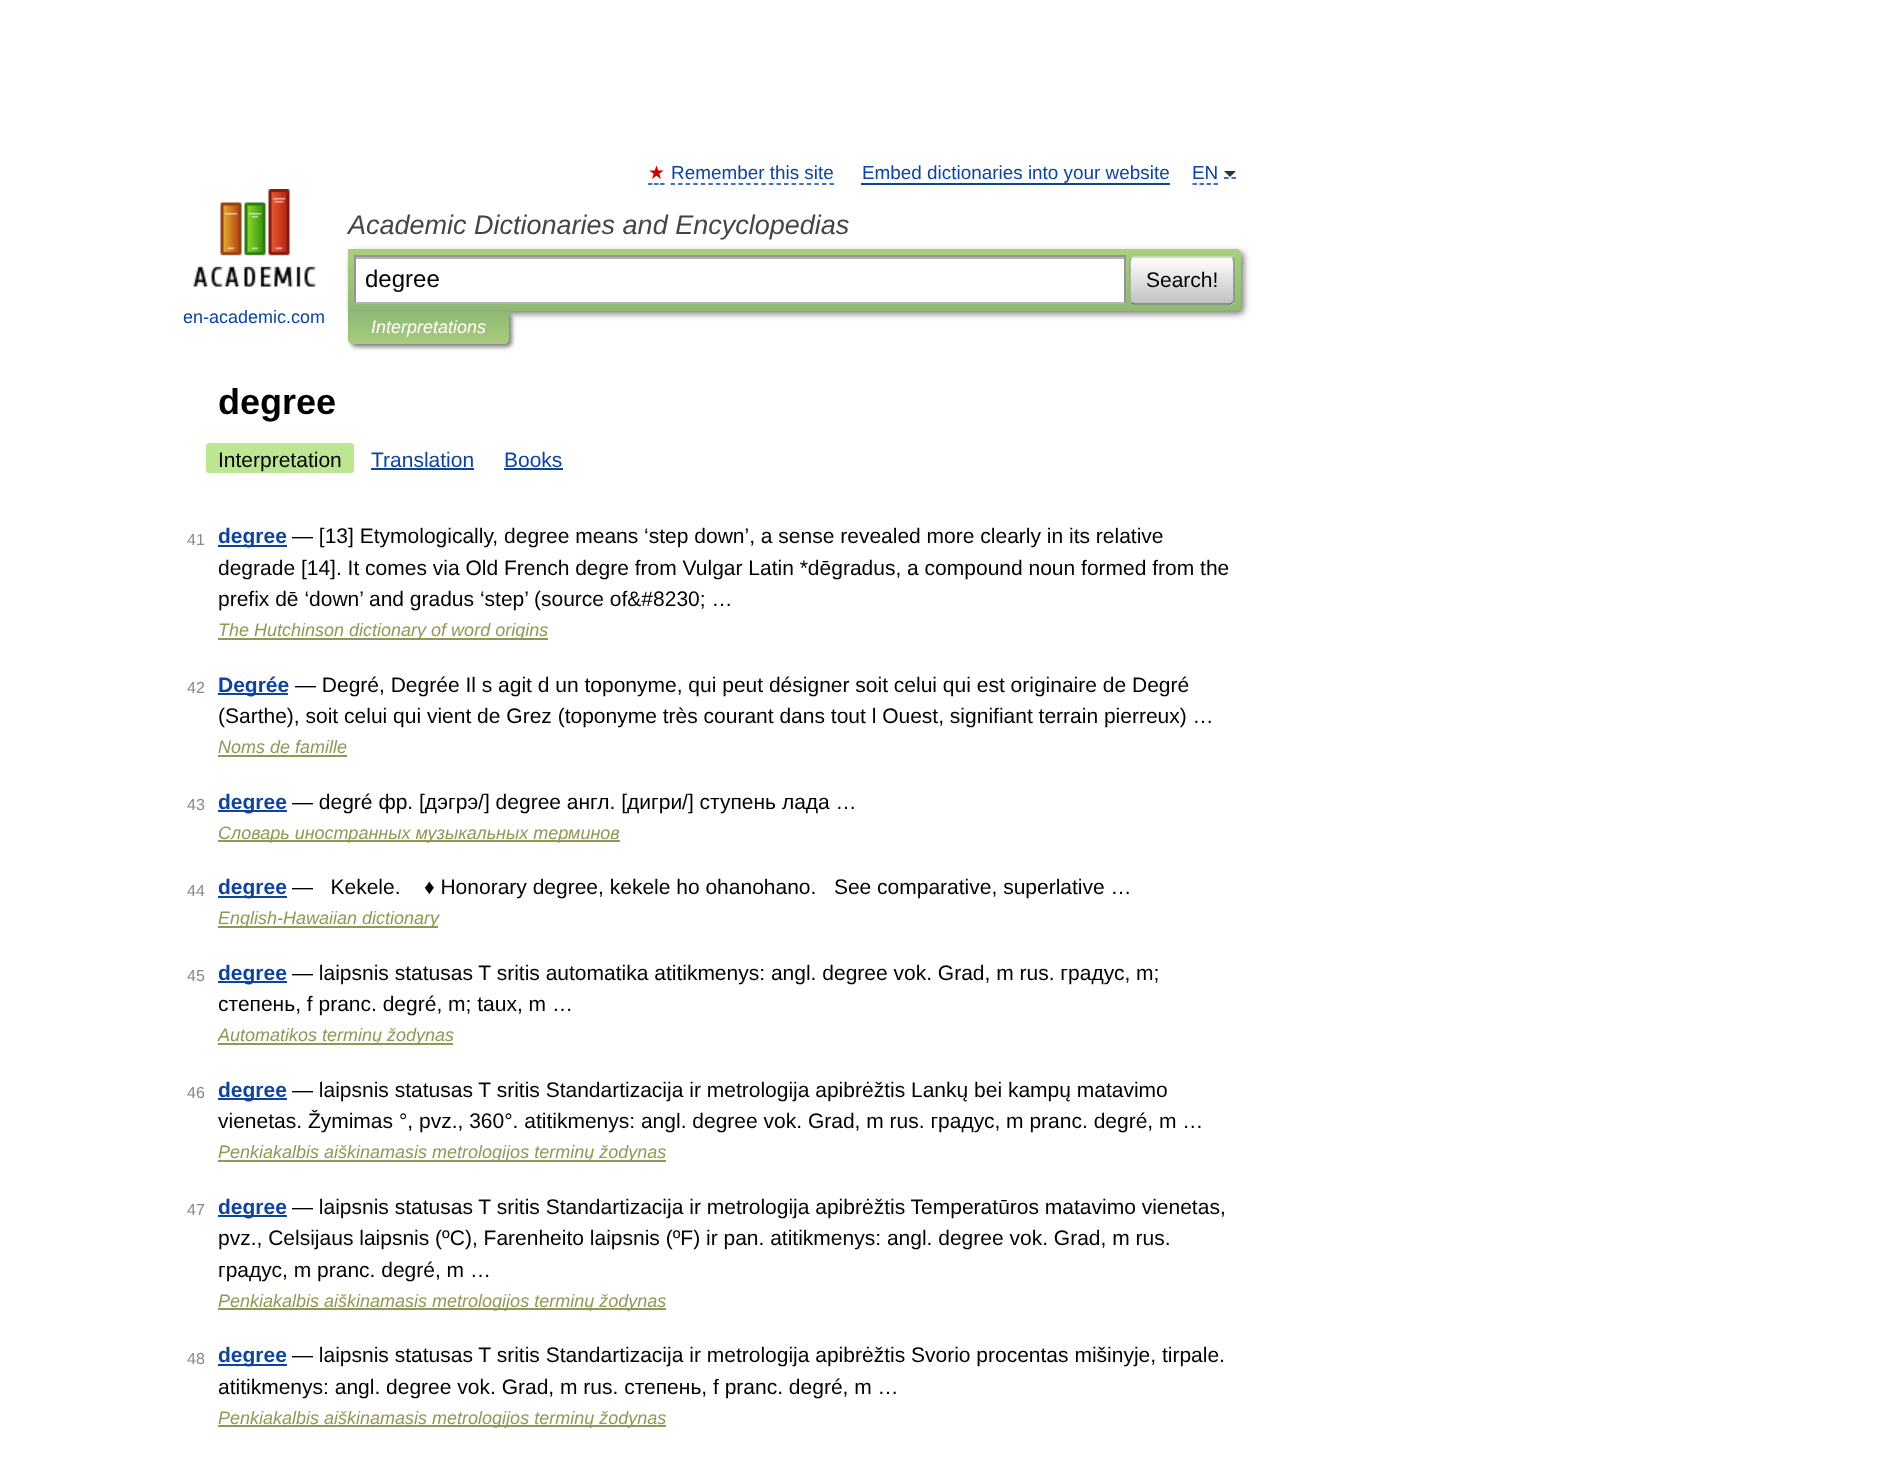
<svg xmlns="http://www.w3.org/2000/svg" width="1896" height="1461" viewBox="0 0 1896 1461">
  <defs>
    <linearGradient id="g1" gradientUnits="userSpaceOnUse" x1="794" y1="249" x2="794" y2="311"><stop offset="0" stop-color="#abcf7e"/><stop offset="1" stop-color="#8eb874"/></linearGradient>
    <clipPath id="clip1"><rect x="1130" y="257" width="105" height="48" rx="5"/></clipPath>
    <linearGradient id="g2" gradientUnits="userSpaceOnUse" x1="1182" y1="258" x2="1182" y2="303"><stop offset="0" stop-color="#fff"/><stop offset="1" stop-color="#c1c1c1"/></linearGradient>
    <linearGradient id="g3" gradientUnits="userSpaceOnUse" x1="1182" y1="303" x2="1182" y2="348"><stop offset="0" stop-color="#fff"/><stop offset="1" stop-color="#c1c1c1"/></linearGradient>
    <linearGradient id="g4" gradientUnits="userSpaceOnUse" x1="428" y1="311" x2="428" y2="344"><stop offset="0" stop-color="#8fb875"/><stop offset="1" stop-color="#a7cc7d"/></linearGradient>
  </defs>
  <rect width="100%" height="100%" fill="#fff"/>
  <path d="M648 184H652.5M654 184H658.5M660 184H664.5" fill="none" stroke="#04a" stroke-width="1.5"/>
  <path d="M670.5 184H834" fill="none" stroke="#04a" stroke-width="1.5" stroke-dasharray="4.5 3.07"/>
  <path d="M861 183h309v2H861z" fill="#0d44a0"/>
  <path d="M1192.5 184H1218" fill="none" stroke="#04a" stroke-width="1.5" stroke-dasharray="4.5 2.5"/>
  <path d="M1224 178H1228.5M1231.5 178H1236" fill="none" stroke="#04a" stroke-width="1.5"/>
  <path d="M1224 171H1236L1230 177Z" fill="#333"/>
  <rect x="351" y="252" width="893" height="62" rx="5" fill="#00000080" filter="blur(3px)"/>
  <path d="M348 249H1236C1239 249 1241 251 1241 254V306C1241 309 1239 311 1236 311H348Z" fill="url(#g1)"/>
  <path d="M356 259h768v43H356z" fill="#fff"/>
  <path d="M356 257h768v2H356z" fill="#b3b3b3"/>
  <path d="M354 255h771v2H354z" fill="#949494"/>
  <path d="M1124 255h2v48H1124z" fill="#949494"/>
  <path d="M354 302h771v2H354z" fill="#b4b4b4"/>
  <path d="M354 255h2v48H354z" fill="#949494"/>
  <g clip-path="url(#clip1)">
    <path d="M1130 258h105v45H1130z" fill="url(#g2)"/>
    <path d="M1130 303h105v2H1130z" fill="url(#g3)"/>
  </g>
  <path d="M1131.5 258.5C1132 257.5 1133 257 1134 257H1230C1231 257 1232 257.5 1232.5 258.5" fill="none" stroke="#d1e4bc" stroke-width="1.5"/>
  <path d="M1232.5 258.5C1233.5 259 1234 260 1234 261V300C1234 301 1233.5 302 1232.5 302.5" fill="none" stroke="#7a8e69" stroke-width="1.5"/>
  <path d="M1232.5 302.5C1232 303.5 1231 304 1230 304H1134C1133 304 1132 303.5 1131.5 302.5" fill="none" stroke="#5d7250" stroke-width="1.5"/>
  <path d="M1131.5 302.5C1130.5 302 1130 301 1130 300V261C1130 260 1130.5 259 1131.5 258.5" fill="none" stroke="#9aae89" stroke-width="1.5"/>
  <image x="193" y="189" width="123" height="98" href="img/1.png"/>
  <rect x="351" y="314" width="161" height="33" rx="5" fill="#00000080" filter="blur(2px)"/>
  <path d="M348 311H509V339C509 342 507 344 504 344H353C350 344 348 342 348 339Z" fill="url(#g4)"/>
  <rect x="206" y="443" width="148" height="30" rx="3" fill="#bde693"/>
  <path d="M371 468h103v2H371z" fill="#0d44a0"/>
  <path d="M504 468h59v2H504z" fill="#0d44a0"/>
  <path d="M218 545h69v2H218z" fill="#0d44a0"/>
  <path d="M218 638h330v2H218z" fill="#939756"/>
  <path d="M218 693h70v2H218z" fill="#0d44a0"/>
  <path d="M218 755h129v2H218z" fill="#939756"/>
  <path d="M218 810h69v2H218z" fill="#0d44a0"/>
  <path d="M218 840h402v2H218z" fill="#939756"/>
  <path d="M218 896h69v2H218z" fill="#0d44a0"/>
  <path d="M218 926h220v2H218z" fill="#939756"/>
  <path d="M218 981h69v2H218z" fill="#0d44a0"/>
  <path d="M218 1043h235v2H218z" fill="#939756"/>
  <path d="M218 1098h69v2H218z" fill="#0d44a0"/>
  <path d="M218 1160h448v2H218z" fill="#939756"/>
  <path d="M218 1215h69v2H218z" fill="#0d44a0"/>
  <path d="M218 1308h448v2H218z" fill="#939756"/>
  <path d="M218 1364h69v2H218z" fill="#0d44a0"/>
  <path d="M218 1425h448v2H218z" fill="#939756"/>
  <text x="648" y="179" font-family="DejaVu Sans" font-size="18.9" fill="#c00">★</text>
  <g font-family="Liberation Sans" font-size="18.9" fill="#0d44a0">
    <text x="671" y="179">Remember this site</text>
    <text x="862" y="179">Embed dictionaries into your website</text>
    <text x="1192" y="179">EN</text>
  </g>
  <text x="348" y="234" font-family="Liberation Sans" font-size="27" font-style="italic" fill="#454545">Academic Dictionaries and Encyclopedias</text>
  <text x="365" y="287" font-family="Liberation Sans" font-size="24" fill="#000">degree</text>
  <text x="1146" y="287" font-family="Liberation Sans" font-size="21" fill="#000">Search!</text>
  <text x="183" y="323" font-family="Liberation Sans" font-size="18" fill="#0d44a0">en-academic.com</text>
  <text x="371" y="333" font-family="Liberation Sans" font-size="18" font-style="italic" fill="#fff">Interpretations</text>
  <text x="218" y="414" font-family="Liberation Sans" font-size="36" font-weight="bold" fill="#000">degree</text>
  <text x="218" y="467" font-family="Liberation Sans" font-size="21" fill="#000">Interpretation</text>
  <g font-family="Liberation Sans" font-size="21" fill="#0d44a0">
    <text x="371" y="467">Translation</text>
    <text x="504" y="467">Books</text>
  </g>
  <text x="187" y="545" font-family="Liberation Sans" font-size="16" fill="#898989">41</text>
  <text x="218" y="543" font-family="Liberation Sans" font-size="21" font-weight="bold" fill="#0d44a0">degree</text>
  <g font-family="Liberation Sans" font-size="21" fill="#000">
    <text x="292" y="543">— [13] Etymologically, degree means ‘step down’, a sense revealed more clearly in its relative</text>
    <text x="218" y="575">degrade [14]. It comes via Old French degre from Vulgar Latin *dēgradus, a compound noun formed from the</text>
    <text x="218" y="606">prefix dē ‘down’ and gradus ‘step’ (source of&amp;#8230; …</text>
  </g>
  <text x="218" y="636" font-family="Liberation Sans" font-size="18" font-style="italic" fill="#939756">The Hutchinson dictionary of word origins</text>
  <text x="187" y="693" font-family="Liberation Sans" font-size="16" fill="#898989">42</text>
  <text x="218" y="692" font-family="Liberation Sans" font-size="21" font-weight="bold" fill="#0d44a0">Degrée</text>
  <g font-family="Liberation Sans" font-size="21" fill="#000">
    <text x="295" y="692">— Degré, Degrée Il s agit d un toponyme, qui peut désigner soit celui qui est originaire de Degré</text>
    <text x="218" y="723">(Sarthe), soit celui qui vient de Grez (toponyme très courant dans tout l Ouest, signifiant terrain pierreux) …</text>
  </g>
  <text x="218" y="753" font-family="Liberation Sans" font-size="18" font-style="italic" fill="#939756">Noms de famille</text>
  <text x="187" y="810" font-family="Liberation Sans" font-size="16" fill="#898989">43</text>
  <text x="218" y="809" font-family="Liberation Sans" font-size="21" font-weight="bold" fill="#0d44a0">degree</text>
  <text x="292" y="809" font-family="Liberation Sans" font-size="21" fill="#000">— degré фр. [дэгрэ/] degree англ. [дигри/] ступень лада …</text>
  <text x="218" y="839" font-family="Liberation Sans" font-size="18" font-style="italic" fill="#939756">Словарь иностранных музыкальных терминов</text>
  <text x="187" y="896" font-family="Liberation Sans" font-size="16" fill="#898989">44</text>
  <text x="218" y="894" font-family="Liberation Sans" font-size="21" font-weight="bold" fill="#0d44a0">degree</text>
  <text x="292" y="894" font-family="Liberation Sans" font-size="21" fill="#000" xml:space="preserve">—   Kekele.    ♦ Honorary degree, kekele ho ohanohano.   See comparative, superlative …</text>
  <text x="218" y="924" font-family="Liberation Sans" font-size="18" font-style="italic" fill="#939756">English-Hawaiian dictionary</text>
  <text x="187" y="981" font-family="Liberation Sans" font-size="16" fill="#898989">45</text>
  <text x="218" y="980" font-family="Liberation Sans" font-size="21" font-weight="bold" fill="#0d44a0">degree</text>
  <g font-family="Liberation Sans" font-size="21" fill="#000">
    <text x="292" y="980">— laipsnis statusas T sritis automatika atitikmenys: angl. degree vok. Grad, m rus. градус, m;</text>
    <text x="218" y="1011">степень, f pranc. degré, m; taux, m …</text>
  </g>
  <text x="218" y="1041" font-family="Liberation Sans" font-size="18" font-style="italic" fill="#939756">Automatikos terminų žodynas</text>
  <text x="187" y="1098" font-family="Liberation Sans" font-size="16" fill="#898989">46</text>
  <text x="218" y="1097" font-family="Liberation Sans" font-size="21" font-weight="bold" fill="#0d44a0">degree</text>
  <g font-family="Liberation Sans" font-size="21" fill="#000">
    <text x="292" y="1097">— laipsnis statusas T sritis Standartizacija ir metrologija apibrėžtis Lankų bei kampų matavimo</text>
    <text x="218" y="1128">vienetas. Žymimas °, pvz., 360°. atitikmenys: angl. degree vok. Grad, m rus. градус, m pranc. degré, m …</text>
  </g>
  <text x="218" y="1158" font-family="Liberation Sans" font-size="18" font-style="italic" fill="#939756">Penkiakalbis aiškinamasis metrologijos terminų žodynas</text>
  <text x="187" y="1215" font-family="Liberation Sans" font-size="16" fill="#898989">47</text>
  <text x="218" y="1214" font-family="Liberation Sans" font-size="21" font-weight="bold" fill="#0d44a0">degree</text>
  <g font-family="Liberation Sans" font-size="21" fill="#000">
    <text x="292" y="1214">— laipsnis statusas T sritis Standartizacija ir metrologija apibrėžtis Temperatūros matavimo vienetas,</text>
    <text x="218" y="1245">pvz., Celsijaus laipsnis (ºC), Farenheito laipsnis (ºF) ir pan. atitikmenys: angl. degree vok. Grad, m rus.</text>
    <text x="218" y="1277">градус, m pranc. degré, m …</text>
  </g>
  <text x="218" y="1307" font-family="Liberation Sans" font-size="18" font-style="italic" fill="#939756">Penkiakalbis aiškinamasis metrologijos terminų žodynas</text>
  <text x="187" y="1364" font-family="Liberation Sans" font-size="16" fill="#898989">48</text>
  <text x="218" y="1362" font-family="Liberation Sans" font-size="21" font-weight="bold" fill="#0d44a0">degree</text>
  <g font-family="Liberation Sans" font-size="21" fill="#000">
    <text x="292" y="1362">— laipsnis statusas T sritis Standartizacija ir metrologija apibrėžtis Svorio procentas mišinyje, tirpale.</text>
    <text x="218" y="1394">atitikmenys: angl. degree vok. Grad, m rus. степень, f pranc. degré, m …</text>
  </g>
  <text x="218" y="1424" font-family="Liberation Sans" font-size="18" font-style="italic" fill="#939756">Penkiakalbis aiškinamasis metrologijos terminų žodynas</text>
</svg>
